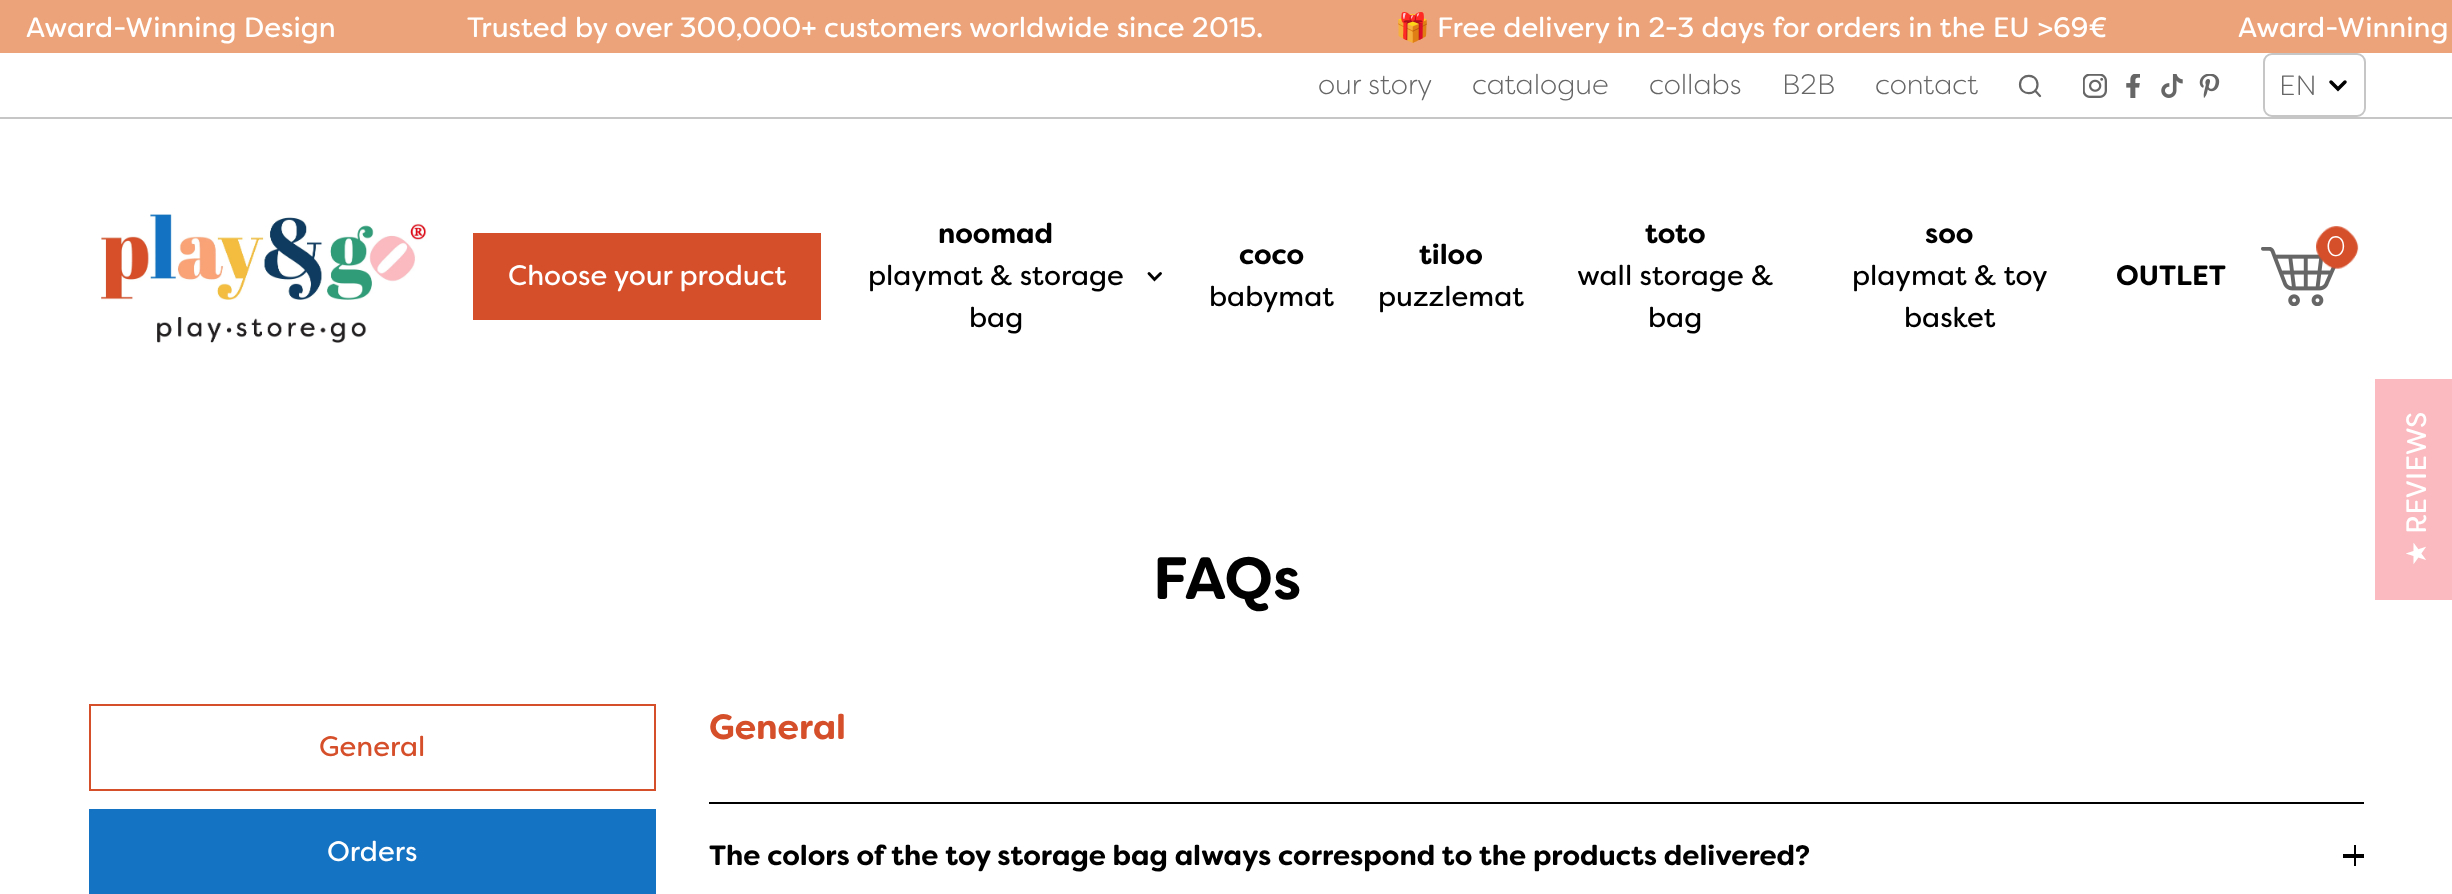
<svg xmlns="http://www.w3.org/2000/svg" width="2452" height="894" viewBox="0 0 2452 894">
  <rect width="100%" height="100%" fill="#fff"/>
  <path d="M0 0h2452v53H0z" fill="#eda379"/>
  <path d="M0 117h2452v2H0z" fill="#c6c6c6"/>
  <path d="M2035 90.5L2040 96M2037.5 84.5C2037.5 96 2020 96 2020 84.5C2020 73 2037.5 73 2037.5 84.5Z" fill="none" stroke="#666" stroke-width="2.2" stroke-linecap="round" stroke-linejoin="round"/>
  <image x="2083" y="74" width="24" height="24" href="img/1.png"/>
  <image x="2126" y="74" width="14" height="24" href="img/2.png"/>
  <image x="2161" y="74" width="22" height="24" href="img/3.png"/>
  <image x="2199" y="74" width="21" height="24" href="img/4.png"/>
  <rect x="2264" y="54" width="101" height="62" rx="8" fill="none" stroke="#c6c6c6" stroke-width="2"/>
  <path d="M2345 82L2338 89L2331 82" fill="none" stroke="#000" stroke-width="3.5" stroke-linecap="round"/>
  <image x="101" y="214" width="326" height="129" href="img/5.png"/>
  <path d="M473 233h348v87H473z" fill="#d64f2b"/>
  <path d="M1160.5 273.5L1154.5 279.5L1149 273.5" fill="none" stroke="#000" stroke-width="2.9" stroke-linecap="round"/>
  <image x="2261" y="247" width="75" height="59" href="img/7.png"/>
  <image x="2316" y="226" width="43" height="43" href="img/6.png"/>
  <path d="M2375 379h77v221H2375z" fill="#fababf"/>
  <path d="M90 705h565v85H90z" fill="none" stroke="#d64f2b" stroke-width="2"/>
  <path d="M89 809h567v85H89z" fill="#1473c2"/>
  <path d="M709 802h1655v2H709z" fill="#000"/>
  <path d="M2343 854h21v4H2343z" fill="#000"/>
  <path d="M2354 845h2v21H2354z" fill="#000"/>
  <g font-family="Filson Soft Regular" font-size="28" fill="#fff">
    <text x="26" y="37">Award-Winning Design</text>
    <text x="467" y="37">Trusted by over 300,000+ customers worldwide since 2015.</text>
  </g>
  <text x="1395" y="37" font-family="Noto Color Emoji" font-size="28" fill="#fff">🎁</text>
  <g font-family="Filson Soft Regular" font-size="28" fill="#fff">
    <text x="1437" y="37">Free delivery in 2-3 days for orders in the EU &gt;69€</text>
    <text x="2238" y="37">Award-Winning</text>
  </g>
  <g font-family="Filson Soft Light" font-size="28" font-weight="300" fill="#666">
    <text x="1318" y="94">our story</text>
    <text x="1472" y="94">catalogue</text>
    <text x="1649" y="94">collabs</text>
    <text x="1782" y="94">B2B</text>
    <text x="1875" y="94">contact</text>
    <text x="2279" y="95">EN</text>
  </g>
  <text x="508" y="285" font-family="Filson Soft Regular" font-size="28" fill="#fff">Choose your product</text>
  <text x="938" y="243" font-family="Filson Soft" font-size="28" font-weight="bold" fill="#000">noomad</text>
  <g font-family="Filson Soft Regular" font-size="28" fill="#000">
    <text x="868" y="285">playmat &amp; storage</text>
    <text x="969" y="327">bag</text>
  </g>
  <text x="1239" y="264" font-family="Filson Soft" font-size="28" font-weight="bold" fill="#000">coco</text>
  <text x="1209" y="306" font-family="Filson Soft Regular" font-size="28" fill="#000">babymat</text>
  <text x="1419" y="264" font-family="Filson Soft" font-size="28" font-weight="bold" fill="#000">tiloo</text>
  <text x="1378" y="306" font-family="Filson Soft Regular" font-size="28" fill="#000">puzzlemat</text>
  <text x="1645" y="243" font-family="Filson Soft" font-size="28" font-weight="bold" fill="#000">toto</text>
  <g font-family="Filson Soft Regular" font-size="28" fill="#000">
    <text x="1577" y="285">wall storage &amp;</text>
    <text x="1648" y="327">bag</text>
  </g>
  <text x="1925" y="243" font-family="Filson Soft" font-size="28" font-weight="bold" fill="#000">soo</text>
  <g font-family="Filson Soft Regular" font-size="28" fill="#000">
    <text x="1852" y="285">playmat &amp; toy</text>
    <text x="1904" y="327">basket</text>
  </g>
  <text x="2116" y="285" font-family="Filson Soft" font-size="28" font-weight="bold" fill="#000">OUTLET</text>
  <text x="2326" y="256" font-family="Filson Soft Light" font-size="28" font-weight="300" fill="#fff">0</text>
  <text x="2426" y="534" transform="rotate(-90 2426 534)" font-family="Filson Soft Regular" font-size="28" fill="#fff">REVIEWS</text>
  <text x="2426" y="566" transform="rotate(-90 2426 566)" font-family="DejaVu Sans" font-size="28" fill="#fff">★</text>
  <text x="1153" y="599" font-family="Filson Soft" font-size="59.5" font-weight="bold" fill="#000">FAQs</text>
  <text x="319" y="756" font-family="Filson Soft Regular" font-size="28" fill="#d64f2b">General</text>
  <text x="327" y="861" font-family="Filson Soft Regular" font-size="28" fill="#fff">Orders</text>
  <text x="709" y="739" font-family="Filson Soft" font-size="35" font-weight="bold" fill="#d64f2b">General</text>
  <text x="709" y="865" font-family="Filson Soft" font-size="28" font-weight="bold" fill="#000">The colors of the toy storage bag always correspond to the products delivered?</text>
</svg>
